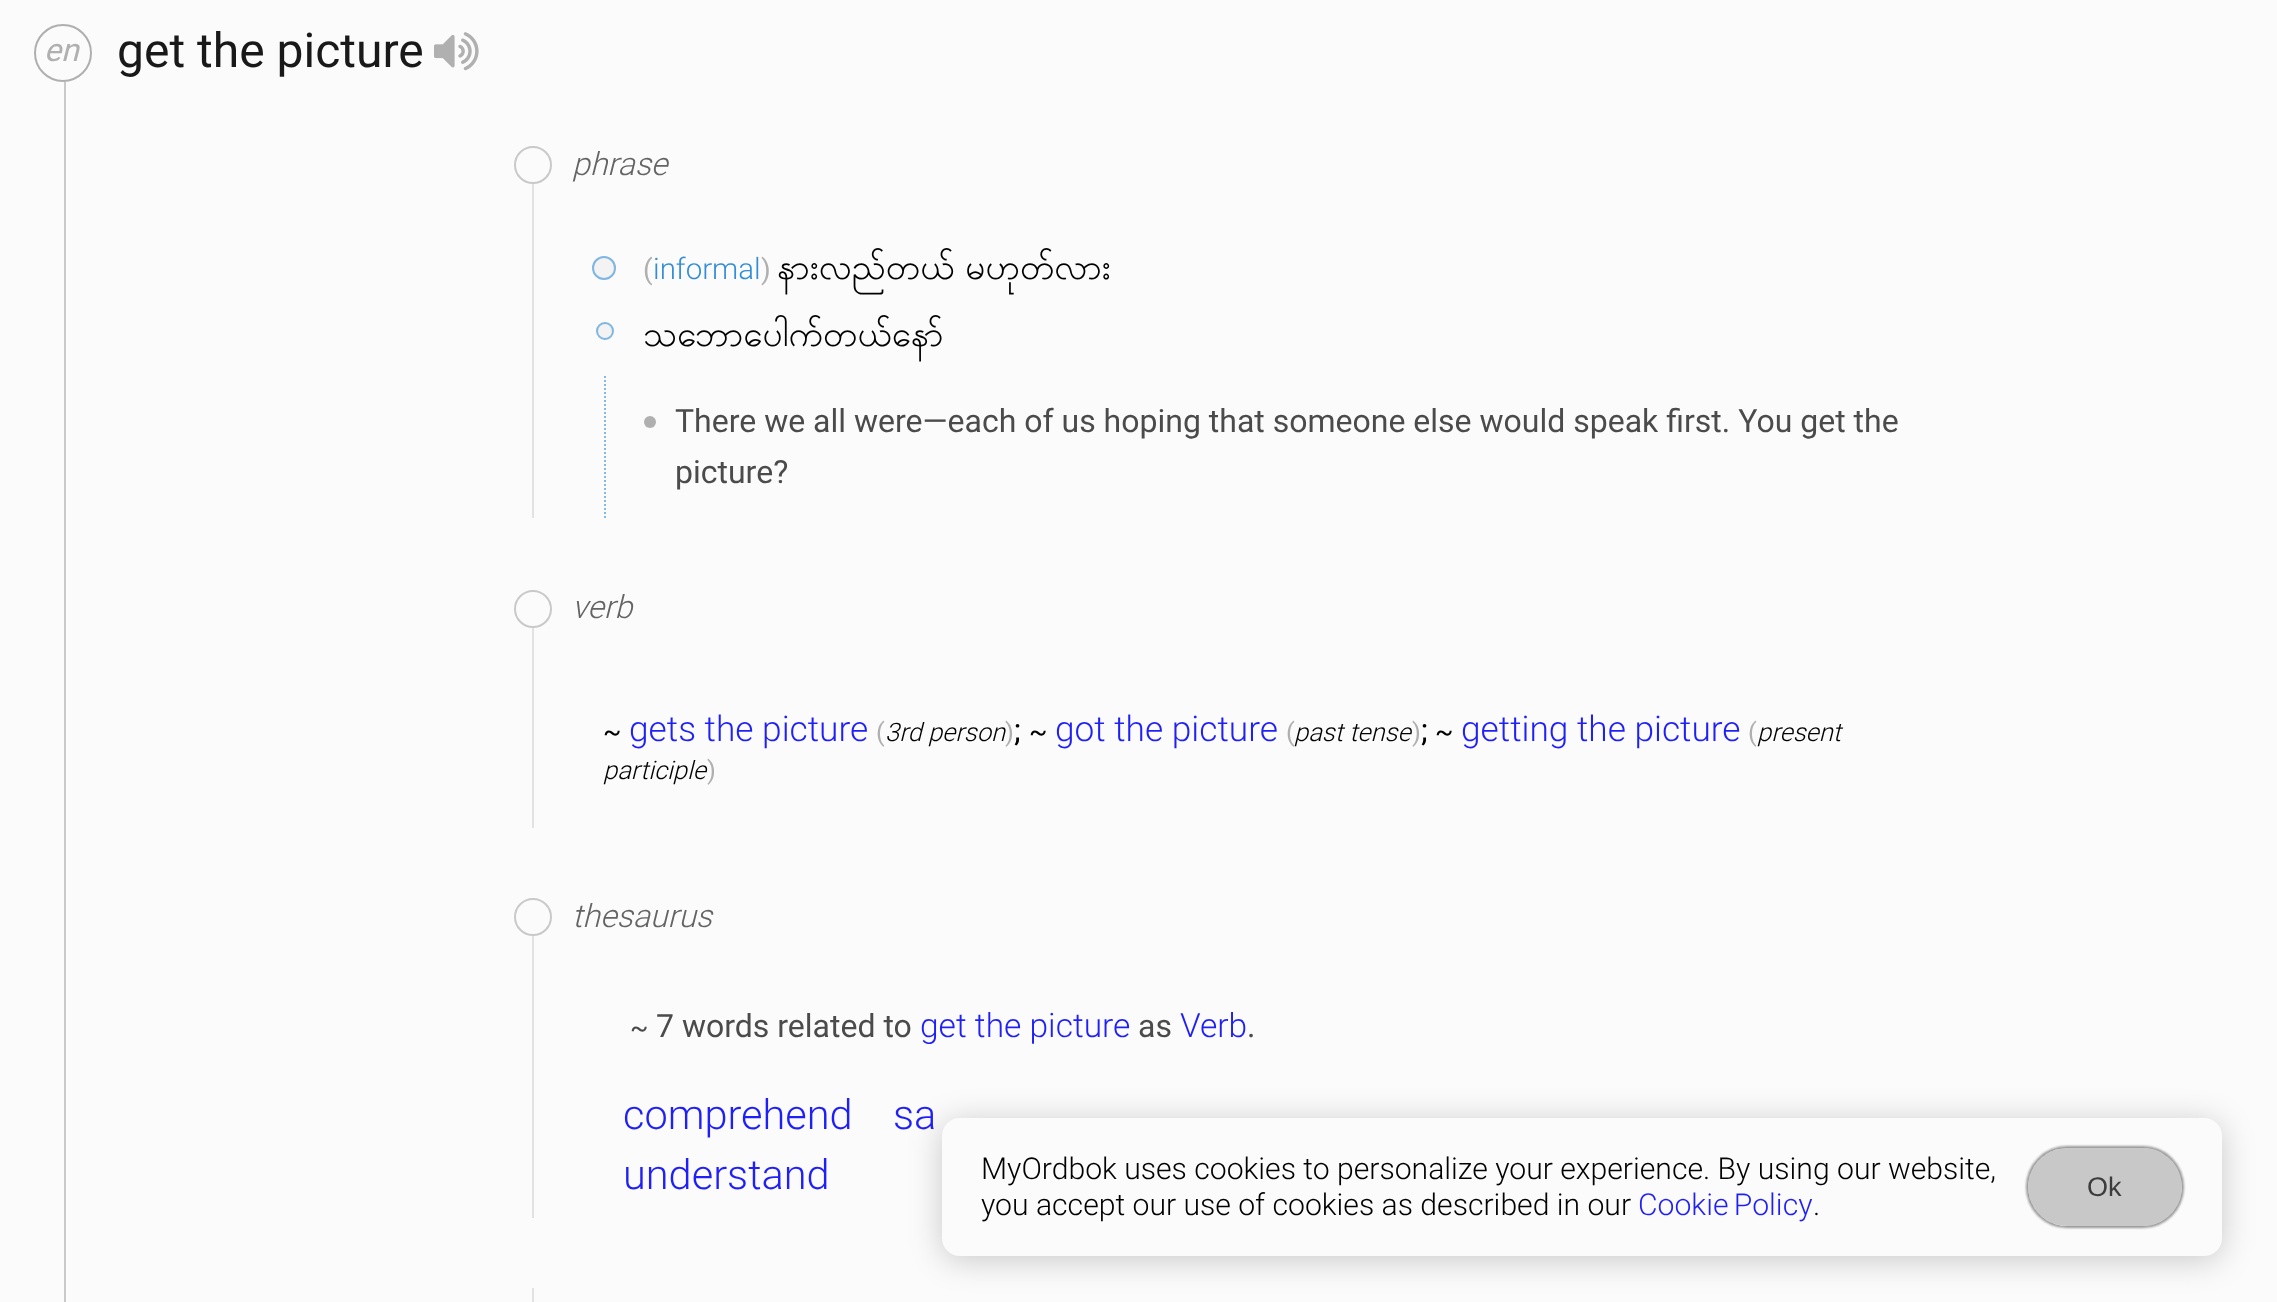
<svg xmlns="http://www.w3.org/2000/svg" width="2277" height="1302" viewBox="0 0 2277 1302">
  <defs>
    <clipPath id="clip1"><path d="M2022 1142H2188V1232H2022ZM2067 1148H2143C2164.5 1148 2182 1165.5 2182 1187C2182 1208.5 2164.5 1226 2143 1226H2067C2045.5 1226 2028 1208.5 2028 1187C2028 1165.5 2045.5 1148 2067 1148Z" clip-rule="evenodd"/></clipPath>
  </defs>
  <rect width="100%" height="100%" fill="#fcfbfb"/>
  <path d="M64 81h2v1221H64z" fill="#cac9c9"/>
  <circle cx="63" cy="53" r="29" fill="#fcfbfb"/>
  <circle cx="63" cy="53" r="28" fill="none" stroke="#0000004d" stroke-width="2"/>
  <image x="434" y="32" width="45" height="39" href="img/1.png"/>
  <circle cx="533" cy="165" r="18" fill="none" stroke="#cac9c9" stroke-width="2"/>
  <path d="M532 184h2v334H532z" fill="#e3e2e2"/>
  <circle cx="604" cy="268" r="12" fill="#f4f3f3"/>
  <circle cx="604" cy="268" r="11" fill="none" stroke="#318ed799" stroke-width="2"/>
  <circle cx="605" cy="331" r="9" fill="#f4f3f3"/>
  <circle cx="605" cy="331" r="8" fill="none" stroke="#318ed799" stroke-width="2"/>
  <path d="M605 376V518" fill="none" stroke="#82bae5" stroke-width="2" stroke-dasharray="2 2"/>
  <circle cx="650" cy="422" r="6" fill="#b0b0b0"/>
  <circle cx="533" cy="609" r="18" fill="none" stroke="#cac9c9" stroke-width="2"/>
  <path d="M532 628h2v200H532z" fill="#e3e2e2"/>
  <circle cx="533" cy="917" r="18" fill="none" stroke="#cac9c9" stroke-width="2"/>
  <path d="M532 936h2v282H532z" fill="#e3e2e2"/>
  <path d="M532 1288h2v14H532z" fill="#e3e2e2"/>
  <rect x="942" y="1122" width="1280" height="138" rx="18" fill="#00000033" filter="blur(16px)"/>
  <rect x="942" y="1118" width="1280" height="138" rx="18" fill="#fcfbfb"/>
  <g clip-path="url(#clip1)">
    <rect x="2026" y="1146" width="158" height="82" rx="41" fill="#00000066" filter="blur(1px)"/>
  </g>
  <rect x="2028" y="1148" width="154" height="78" rx="39" fill="#00000033"/>
  <text x="44" y="61" font-family="Roboto" font-size="32" font-style="italic" fill="#b0b0b0">en</text>
  <text x="117" y="67" font-family="Roboto" font-size="48" fill="#191919">get the picture</text>
  <text x="572" y="175" font-family="Roboto" font-size="32" font-weight="300" font-style="italic" fill="#656464">phrase</text>
  <text x="643" y="279" font-family="Roboto" font-size="28" fill="#b0b0b0">(</text>
  <text x="653" y="279" font-family="Roboto" font-size="29.5" font-weight="300" fill="#318ed7">informal</text>
  <text x="761" y="279" font-family="Roboto" font-size="28" fill="#b0b0b0">)</text>
  <g font-family="Padauk" font-size="35.25" fill="#000">
    <text x="777" y="279" word-spacing="-2">နားလည်တယ် မဟုတ်လား</text>
    <text x="643" y="346">သဘောပေါက်တယ်နော်</text>
  </g>
  <g font-family="Roboto" font-size="32" fill="#4c4b4b">
    <text x="675" y="432">There we all were—each of us hoping that someone else would speak first. You get the</text>
    <text x="675" y="483">picture?</text>
  </g>
  <text x="572" y="618" font-family="Roboto" font-size="32" font-weight="300" font-style="italic" fill="#656464">verb</text>
  <text x="603" y="741" font-family="Roboto" font-size="27" fill="#000">~</text>
  <text x="629" y="741" font-family="Roboto" font-size="35.25" font-weight="300" fill="#1f1ff7">gets the picture</text>
  <text x="876" y="741" font-family="Roboto" font-size="25.5" fill="#b0b0b0">(</text>
  <text x="885" y="741" font-family="Roboto" font-size="25.5" font-weight="300" font-style="italic" fill="#000">3rd person</text>
  <text x="1005" y="741" font-family="Roboto" font-size="25.5" fill="#b0b0b0">)</text>
  <text x="1014" y="741" font-family="Roboto" font-size="32" fill="#000">;</text>
  <text x="1029" y="741" font-family="Roboto" font-size="27" fill="#000">~</text>
  <text x="1055" y="741" font-family="Roboto" font-size="35.25" font-weight="300" fill="#1f1ff7">got the picture</text>
  <text x="1286" y="741" font-family="Roboto" font-size="25.5" fill="#b0b0b0">(</text>
  <text x="1294" y="741" font-family="Roboto" font-size="25.5" font-weight="300" font-style="italic" fill="#000">past tense</text>
  <text x="1412" y="741" font-family="Roboto" font-size="25.5" fill="#b0b0b0">)</text>
  <text x="1421" y="741" font-family="Roboto" font-size="32" fill="#000">;</text>
  <text x="1435" y="741" font-family="Roboto" font-size="27" fill="#000">~</text>
  <text x="1461" y="741" font-family="Roboto" font-size="35.25" font-weight="300" fill="#1f1ff7">getting the picture</text>
  <text x="1748" y="741" font-family="Roboto" font-size="25.5" fill="#b0b0b0">(</text>
  <g font-family="Roboto" font-size="25.5" font-weight="300" font-style="italic" fill="#000">
    <text x="1757" y="741">present</text>
    <text x="603" y="779">participle</text>
  </g>
  <text x="707" y="779" font-family="Roboto" font-size="25.5" fill="#b0b0b0">)</text>
  <text x="572" y="927" font-family="Roboto" font-size="32" font-weight="300" font-style="italic" fill="#656464">thesaurus</text>
  <text x="630" y="1037" font-family="Roboto" font-size="27" fill="#4c4b4b">~</text>
  <text x="656" y="1037" font-family="Roboto" font-size="32" fill="#4c4b4b">7 words related to</text>
  <text x="920" y="1037" font-family="Roboto" font-size="33.5" font-weight="300" fill="#1f1ff7">get the picture</text>
  <text x="1138" y="1037" font-family="Roboto" font-size="32" fill="#4c4b4b">as</text>
  <text x="1180" y="1037" font-family="Roboto" font-size="33.5" font-weight="300" fill="#1f1ff7">Verb</text>
  <text x="1247" y="1037" font-family="Roboto" font-size="32" fill="#4c4b4b">.</text>
  <g font-family="Roboto" font-size="41.5" font-weight="300" fill="#1f1ff7">
    <text x="623" y="1129">comprehend</text>
    <text x="893" y="1129">sa</text>
    <text x="623" y="1189">understand</text>
  </g>
  <g font-family="Roboto" font-size="30.15" font-weight="300" fill="#000">
    <text x="981" y="1179">MyOrdbok uses cookies to personalize your experience. By using our website,</text>
    <text x="981" y="1215">you accept our use of cookies as described in our</text>
  </g>
  <text x="1638" y="1215" word-spacing="-2" font-family="Roboto" font-size="30.15" font-weight="300" fill="#1f1ff7">Cookie Policy</text>
  <text x="1813" y="1215" font-family="Roboto" font-size="30.15" font-weight="300" fill="#000">.</text>
  <text x="2087" y="1196" font-family="Liberation Sans" font-size="27" fill="#3c3c3c">Ok</text>
</svg>
